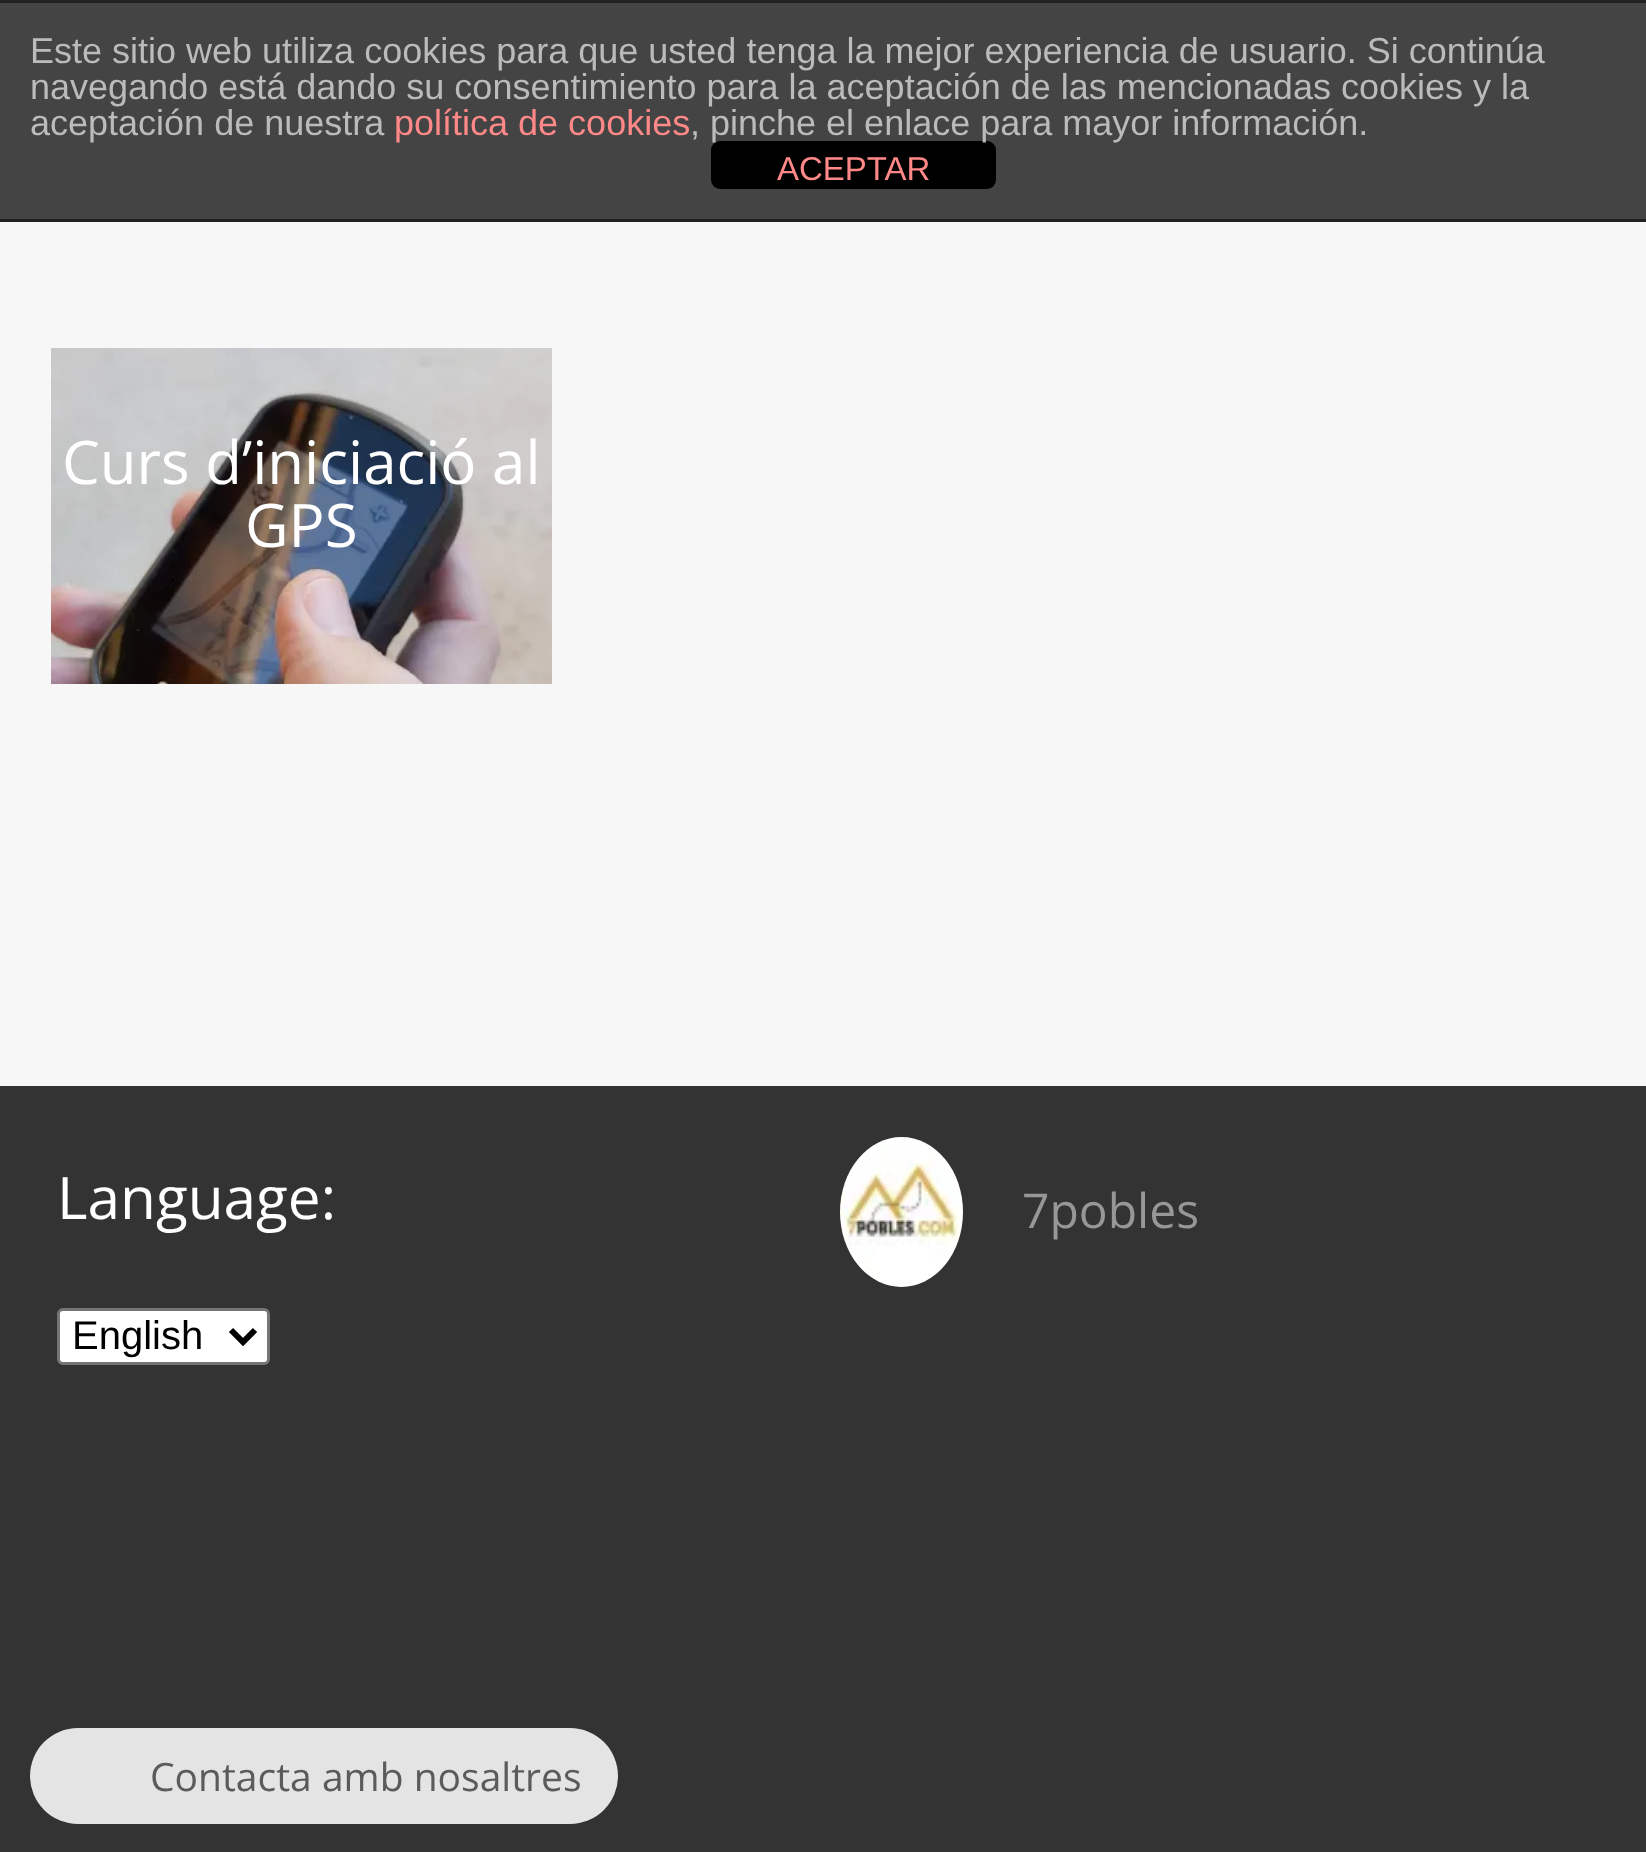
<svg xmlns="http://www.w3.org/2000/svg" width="1646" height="1852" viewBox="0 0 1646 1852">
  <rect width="100%" height="100%" fill="#f7f7f7"/>
  <path d="M0 3h1646v216H0z" fill="#444"/>
  <path d="M0 0h1646v3H0z" fill="#222"/>
  <path d="M0 219h1646v3H0z" fill="#222"/>
  <rect x="711" y="141" width="285" height="48" rx="9" fill="#000"/>
  <image x="51" y="348" width="501" height="336" href="img/1.png"/>
  <path d="M0 1086h1646v766H0z" fill="#333"/>
  <rect x="58.5" y="1309.5" width="210" height="54" rx="4.5" fill="#fff" stroke="#767676" stroke-width="3"/>
  <path d="M231 1330L243 1342L255 1330" fill="none" stroke="#000" stroke-width="6"/>
  <image x="840" y="1137" width="123" height="150" href="img/2.png"/>
  <rect x="30" y="1728" width="588" height="96" rx="48" fill="#e4e4e4"/>
  <g font-family="Liberation Sans" font-size="36" fill="#bbb">
    <text x="30" y="63">Este sitio web utiliza cookies para que usted tenga la mejor experiencia de usuario. Si continúa</text>
    <text x="30" y="99">navegando está dando su consentimiento para la aceptación de las mencionadas cookies y la</text>
    <text x="30" y="135">aceptación de nuestra</text>
  </g>
  <text x="394" y="135" font-family="Liberation Sans" font-size="36" fill="#f88">política de cookies</text>
  <text x="690" y="135" font-family="Liberation Sans" font-size="36" fill="#bbb">, pinche el enlace para mayor información.</text>
  <text x="777" y="180" font-family="Liberation Sans" font-size="33" fill="#f88">ACEPTAR</text>
  <g font-family="Open Sans" font-size="60" fill="#fff">
    <text x="62" y="484">Curs d’iniciació al</text>
    <text x="245" y="547">GPS</text>
  </g>
  <text x="57" y="1219" font-family="Open Sans" font-size="58.5" fill="#fff">Language:</text>
  <text x="72" y="1349" font-family="Liberation Sans" font-size="40" fill="#000">English</text>
  <text x="1022" y="1228" font-family="Open Sans" font-size="48" fill="#979797">7pobles</text>
  <text x="150" y="1791" font-family="Open Sans" font-size="39" fill="#5b5b5b">Contacta amb nosaltres</text>
</svg>
